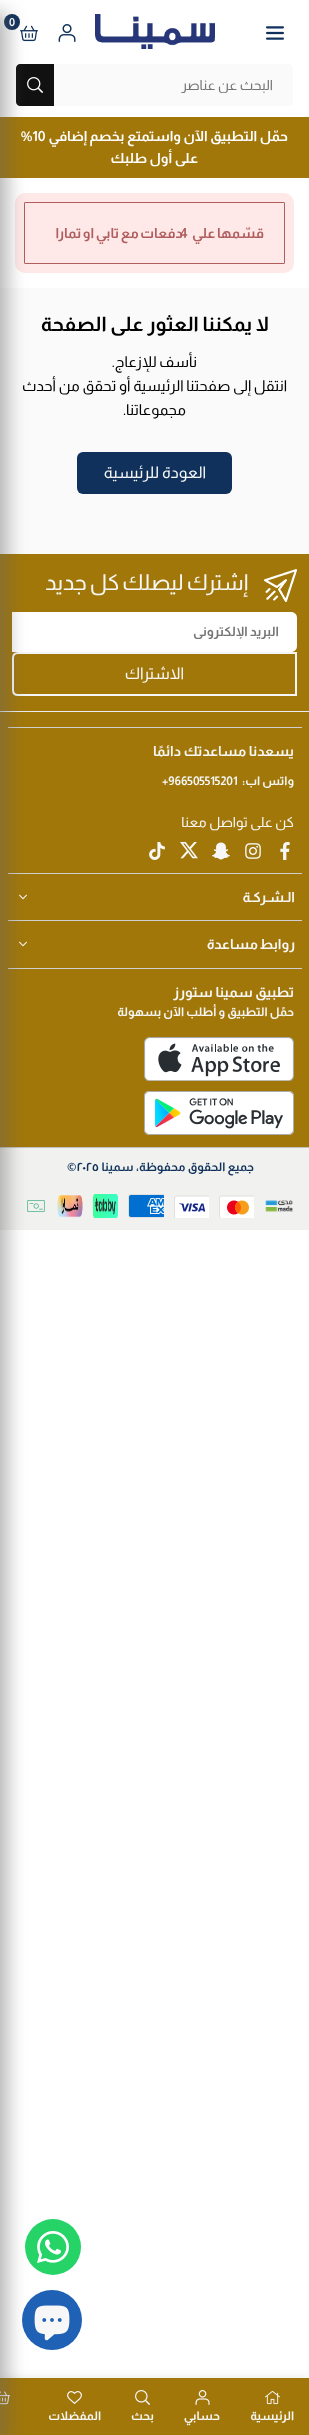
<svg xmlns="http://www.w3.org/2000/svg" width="309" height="2435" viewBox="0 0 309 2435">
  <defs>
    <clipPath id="clip1"><path d="M74 77h199v16H74z"/></clipPath>
    <clipPath id="clip2"><path d="M30 624h249v15H30z"/></clipPath>
  </defs>
  <rect width="100%" height="100%" fill="#fff"/>
  <circle cx="12" cy="22" r="8" fill="#10315b"/>
  <image x="20" y="25" width="18" height="17" href="img/2.png"/>
  <path d="M20 64H54V106H20C18 106 16 104 16 102V68C16 66 18 64 20 64Z" fill="#111"/>
  <image x="27" y="77" width="16" height="16" href="img/5.png"/>
  <path d="M0 117h309v61H0z" fill="#a17709"/>
  <rect x="15" y="193" width="279" height="80" rx="10" fill="#ffe8e8"/>
  <rect x="24.5" y="202.5" width="260" height="61" rx="0.5" fill="none" stroke="#b05d5d"/>
  <path d="M0 288h309v266H0z" fill="#fafafa"/>
  <path d="M0 554h309v157H0z" fill="#a17709"/>
  <path d="M12 612H291C294.5 612 297 614.5 297 618V646C297 649.5 294.5 652 291 652H12Z" fill="#fff"/>
  <path d="M18 653H296V695H18C15 695 13 693 13 690V658C13 655 15 653 18 653Z" fill="none" stroke="#f5f5f7" stroke-width="2"/>
  <path d="M0 712h309v435H0z" fill="#a17709"/>
  <path d="M0 711h309v1H0z" fill="#e9edf1"/>
  <path d="M8 727h294v1H8z" fill="#cfcfcf"/>
  <path d="M8 873h294v1H8z" fill="#cfcfcf"/>
  <image x="19" y="894" width="8" height="6" href="img/12.png"/>
  <path d="M8 920h294v1H8z" fill="#cfcfcf"/>
  <image x="19" y="941" width="8" height="6" href="img/12.png"/>
  <path d="M8 968h294v1H8z" fill="#cfcfcf"/>
  <path d="M0 1148h309v82H0z" fill="#f1f2ef"/>
  <path d="M0 1147h309v1H0z" fill="#c1c2bf"/>
  <image x="27" y="1200" width="18" height="12" href="img/21.png"/>
  <path d="M0 2378h309v57H0z" fill="#0000001a" filter="blur(5px)"/>
  <path d="M0 2378h309v57H0z" fill="#a17709"/>
  <image x="0" y="2391" width="10" height="14" href="img/23.png"/>
  <path d="M-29 13h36v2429H-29z" fill="#66666680" filter="blur(9.5px)"/>
  <image x="95" y="14" width="120" height="35" href="img/1.png"/>
  <image x="58" y="24" width="18" height="18" href="img/3.png"/>
  <image x="266" y="26" width="18" height="14" href="img/4.png"/>
  <path d="M54 64H289C291 64 293 66 293 68V102C293 104 291 106 289 106H54Z" fill="#fafafa"/>
  <rect x="77" y="452" width="155" height="42" rx="6" fill="#10315b"/>
  <image x="264" y="569" width="33" height="33" href="img/6.png"/>
  <image x="280" y="842" width="10" height="18" href="img/7.png"/>
  <image x="245" y="843" width="16" height="16" href="img/8.png"/>
  <image x="212" y="842" width="18" height="18" href="img/9.png"/>
  <image x="180" y="842" width="18" height="17" href="img/10.png"/>
  <image x="149" y="842" width="16" height="18" href="img/11.png"/>
  <image x="144" y="1037" width="150" height="44" href="img/13.png"/>
  <image x="144" y="1091" width="150" height="44" href="img/14.png"/>
  <image x="265" y="1200" width="28" height="12" href="img/15.png"/>
  <image x="219" y="1195" width="35" height="23" href="img/16.png"/>
  <image x="174" y="1195" width="35" height="23" href="img/17.png"/>
  <image x="128" y="1194" width="36" height="24" href="img/18.png"/>
  <image x="93" y="1194" width="25" height="24" href="img/19.png"/>
  <image x="57" y="1195" width="26" height="23" href="img/20.png"/>
  <circle cx="53" cy="2247" r="28" fill="#25d366"/>
  <image x="37" y="2231" width="32" height="32" href="img/22.png"/>
  <image x="265" y="2391" width="15" height="14" href="img/24.png"/>
  <image x="195" y="2390" width="15" height="15" href="img/25.png"/>
  <image x="135" y="2390" width="15" height="15" href="img/26.png"/>
  <image x="67" y="2391" width="15" height="14" href="img/27.png"/>
  <circle cx="52" cy="2320" r="30" fill="#1f62b5"/>
  <image x="34" y="2305" width="36" height="36" href="img/28.png"/>
  <text x="9" y="26" font-family="Almarai" font-size="11" font-weight="bold" fill="#f7f7f7">0</text>
  <g clip-path="url(#clip1)">
    <text x="273" y="90" font-family="Almarai" font-size="14" direction="rtl" fill="#757575">البحث عن عناصر</text>
  </g>
  <text x="288" y="141" font-family="Almarai" font-size="14" font-weight="bold" direction="rtl" fill="#fff">حمّل التطبيق الآن واستمتع بخصم إضافي</text>
  <text x="21" y="141" font-family="Almarai" font-size="14" font-weight="bold" fill="#fff">%10</text>
  <text x="198" y="163" font-family="Almarai" font-size="14" font-weight="bold" direction="rtl" fill="#fff">على أول طلبك</text>
  <g font-family="Almarai" font-size="14" font-weight="bold" letter-spacing="0.4" direction="rtl" fill="#b05d5d">
    <text x="264" y="238" word-spacing="-1">قسّمها علي</text>
    <text x="183" y="238" word-spacing="-1">دفعات مع تابي او تمارا</text>
  </g>
  <text x="180" y="238" font-family="Almarai" font-size="14" font-weight="bold" letter-spacing="0.4" fill="#b05d5d">4</text>
  <text x="269" y="331" font-family="Almarai" font-size="20" font-weight="bold" direction="rtl" fill="#000">لا يمكننا العثور على الصفحة</text>
  <g font-family="Almarai" font-size="15" direction="rtl" fill="#000">
    <text x="197" y="367">نأسف للإزعاج.</text>
    <text x="287" y="391">انتقل إلى صفحتنا الرئيسية أو تحقق من أحدث</text>
    <text x="186" y="415">مجموعاتنا.</text>
  </g>
  <text x="206" y="478" font-family="Almarai" font-size="16" direction="rtl" fill="#f7f7f7">العودة للرئيسية</text>
  <text x="248" y="590" word-spacing="-1" font-family="Almarai" font-size="22" letter-spacing="0.25" direction="rtl" fill="#f7f7f7">إشترك ليصلك كل جديد</text>
  <g clip-path="url(#clip2)">
    <text x="279" y="636" font-family="Almarai" font-size="13" font-weight="bold" direction="rtl" fill="#757575">البريد الإلكتروني</text>
  </g>
  <text x="184" y="679" font-family="Almarai" font-size="16" direction="rtl" fill="#f7f7f7">الاشتراك</text>
  <text x="294" y="756" font-family="Almarai" font-size="14" font-weight="bold" direction="rtl" fill="#f7f7f7">يسعدنا مساعدتك دائمًا</text>
  <text x="294" y="785" font-family="Almarai" font-size="12" font-weight="bold" direction="rtl" fill="#f7f7f7">واتس اب:</text>
  <text x="162" y="785" font-family="Almarai" font-size="12" font-weight="bold" fill="#f7f7f7">+966505515201</text>
  <text x="294" y="827" font-family="Almarai" font-size="14" direction="rtl" fill="#f7f7f7">كن على تواصل معنا</text>
  <g font-family="Almarai" font-size="14" font-weight="bold" letter-spacing="0.1" direction="rtl" fill="#f7f7f7">
    <text x="295" y="902">الـشـركـة</text>
    <text x="295" y="949" word-spacing="-1">روابط مساعدة</text>
  </g>
  <text x="294" y="997" font-family="Almarai" font-size="14" font-weight="bold" direction="rtl" fill="#f7f7f7">تطبيق سمينا ستورز</text>
  <text x="294" y="1016" font-family="Almarai" font-size="12" font-weight="bold" direction="rtl" fill="#f7f7f7">حمًل التطبيق و أطلب الآن بسهولة</text>
  <text x="254" y="1171" font-family="Almarai" font-size="12" font-weight="bold" direction="rtl" fill="#10315b">جميع الحقوق محفوظة، سمينا</text>
  <text x="67" y="1171" font-family="Almarai" font-size="12" font-weight="bold" fill="#10315b">©٢٠٢٥</text>
  <g font-family="Almarai" font-size="12" font-weight="bold" direction="rtl" fill="#f7f7f7">
    <text x="294" y="2420">الرئيسية</text>
    <text x="220" y="2420">حسابي</text>
    <text x="154" y="2420">بحث</text>
    <text x="101" y="2420">المفضلات</text>
  </g>
</svg>
